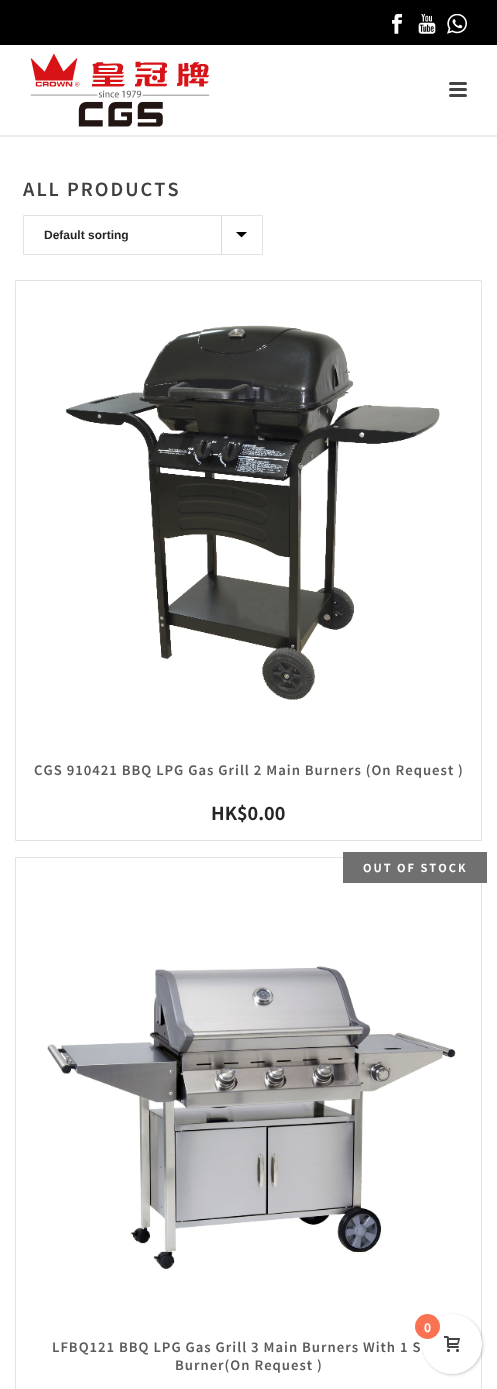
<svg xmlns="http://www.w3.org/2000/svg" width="497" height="1389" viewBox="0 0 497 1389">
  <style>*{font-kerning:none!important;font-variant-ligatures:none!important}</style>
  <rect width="100%" height="100%" fill="#fff"/>
  <path d="M0 135h497v2H0z" fill="#ededed"/>
  <path d="M0 0h497v45H0z" fill="#000"/>
  <image x="392" y="14" width="10" height="20" href="img/1.png"/>
  <image x="418" y="14" width="18" height="20" href="img/2.png"/>
  <image x="447" y="14" width="20" height="20" href="img/3.png"/>
  <image x="30" y="53" width="181" height="74" href="img/4.png"/>
  <rect x="449" y="82" width="18" height="3" rx="1.5" fill="#444"/>
  <rect x="449" y="88" width="18" height="3" rx="1.5" fill="#444"/>
  <rect x="449" y="94" width="18" height="3" rx="1.5" fill="#444"/>
  <image x="221" y="216" width="26" height="38" href="img/5.png"/>
  <path d="M23.5 215.5h239v39H23.5z" fill="none" stroke="#e3e3e3"/>
  <path d="M15.5 280.5h466v560H15.5z" fill="none" stroke="#e3e3e3"/>
  <image x="65" y="325" width="375" height="375" href="img/6.png"/>
  <path d="M15.5 857.5h466v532H15.5z" fill="none" stroke="#e3e3e3"/>
  <path d="M343 852h144v31H343z" fill="#707070"/>
  <image x="47" y="966" width="409" height="304" href="img/7.png"/>
  <rect x="423" y="1315" width="60" height="60" rx="30" fill="#00000033" filter="blur(1.5px)"/>
  <circle cx="452" cy="1344" r="30" fill="#fff"/>
  <circle cx="427.5" cy="1326.5" r="12.5" fill="#f97352"/>
  <image x="444" y="1336" width="16" height="16" href="img/8.png"/>
  <text x="23" y="196" font-family="Noto Sans TC" font-size="18" font-weight="600" letter-spacing="2" fill="#404040">ALL PRODUCTS</text>
  <text x="44" y="239" font-family="Liberation Sans" font-size="12" font-weight="bold" fill="#252525">Default sorting</text>
  <text x="34" y="775" font-family="Noto Sans TC" font-size="13" font-weight="600" letter-spacing="1" fill="#5b5b5b">CGS 910421 BBQ LPG Gas Grill 2 Main Burners (On Request )</text>
  <text x="211" y="820" font-family="Noto Sans TC" font-size="18" font-weight="bold" fill="#252525">HK$0.00</text>
  <text x="363" y="872" font-family="Noto Sans TC" font-size="11" font-weight="bold" letter-spacing="2" fill="#fff">OUT OF STOCK</text>
  <g font-family="Noto Sans TC" font-size="13" font-weight="600" letter-spacing="1" fill="#5b5b5b">
    <text x="52" y="1352">LFBQ121 BBQ LPG Gas Grill 3 Main Burners With 1 S</text>
    <text x="175" y="1370">Burner(On Request )</text>
  </g>
  <text x="424" y="1332" font-family="Noto Sans TC" font-size="12" font-weight="bold" fill="#fff">0</text>
</svg>
